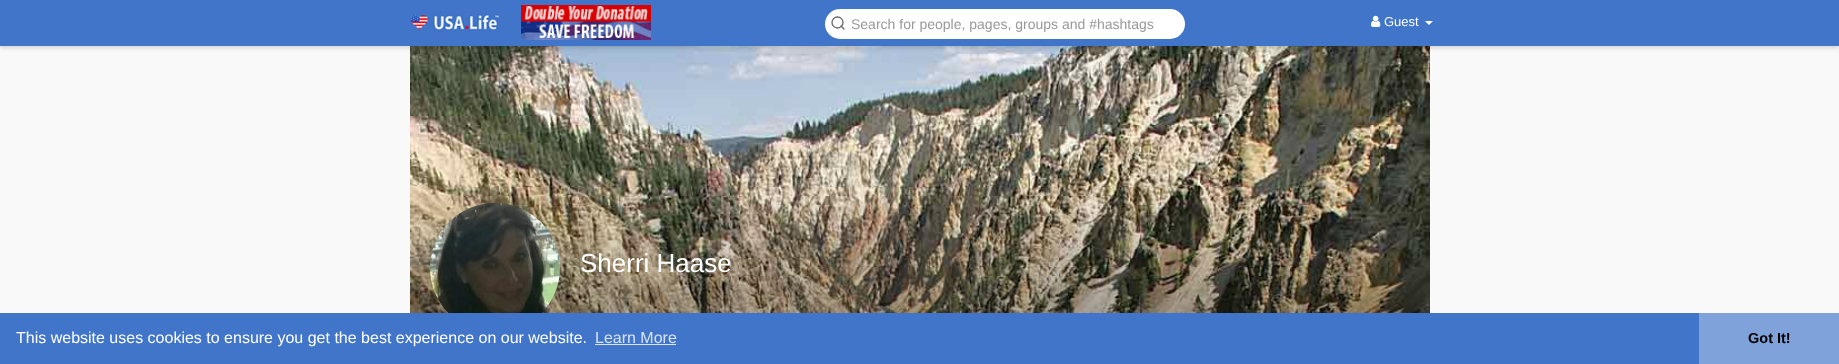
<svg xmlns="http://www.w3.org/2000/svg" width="1839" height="364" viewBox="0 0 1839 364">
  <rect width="100%" height="100%" fill="#f9f9f9"/>
  <image x="410" y="46" width="1020" height="267" href="img/4.png"/>
  <path d="M0 2h1839v46H0z" fill="#00000026" filter="blur(2px)"/>
  <path d="M0 0h1839v46H0z" fill="#4075c9"/>
  <image x="410" y="11" width="90" height="23" href="img/1.png"/>
  <image x="521" y="5" width="130" height="35" href="img/2.png"/>
  <rect x="825" y="9" width="360" height="30" rx="15" fill="#fff"/>
  <circle cx="837.5" cy="22.5" r="5.5" fill="none" stroke="#666" stroke-width="1.3"/>
  <path d="M844 29L841 26" fill="none" stroke="#666" stroke-width="1.3" stroke-linecap="round" stroke-linejoin="round"/>
  <image x="1371" y="15" width="10" height="12" href="img/3.png"/>
  <path d="M1425 21H1433L1429 25Z" fill="#fff"/>
  <rect x="430" y="205" width="130" height="130" rx="65" fill="#00000026" filter="blur(5px)"/>
  <image x="430" y="203" width="130" height="110" href="img/5.png"/>
  <path d="M0 313h1699v51H0z" fill="#4075c9"/>
  <path d="M595 344h81v1H595z" fill="#d9e3f4"/>
  <path d="M1699 313h140v51H1699z" fill="#7fa2da"/>
  <text x="851" y="29" font-family="Liberation Sans" font-size="14" fill="#999">Search for people, pages, groups and #hashtags</text>
  <text x="1384" y="26" font-family="Liberation Sans" font-size="13" fill="#fff">Guest</text>
  <text x="580" y="272" font-family="Liberation Sans" font-size="26" fill="#fff">Sherri Haase</text>
  <text x="16" y="343" font-family="Liberation Sans" font-size="16" fill="#fff">This website uses cookies to ensure you get the best experience on our website.</text>
  <text x="595" y="343" font-family="Liberation Sans" font-size="16" fill="#d9e3f4">Learn More</text>
  <text x="1748" y="343" font-family="Liberation Sans" font-size="14.5" font-weight="bold" fill="#000">Got It!</text>
</svg>
